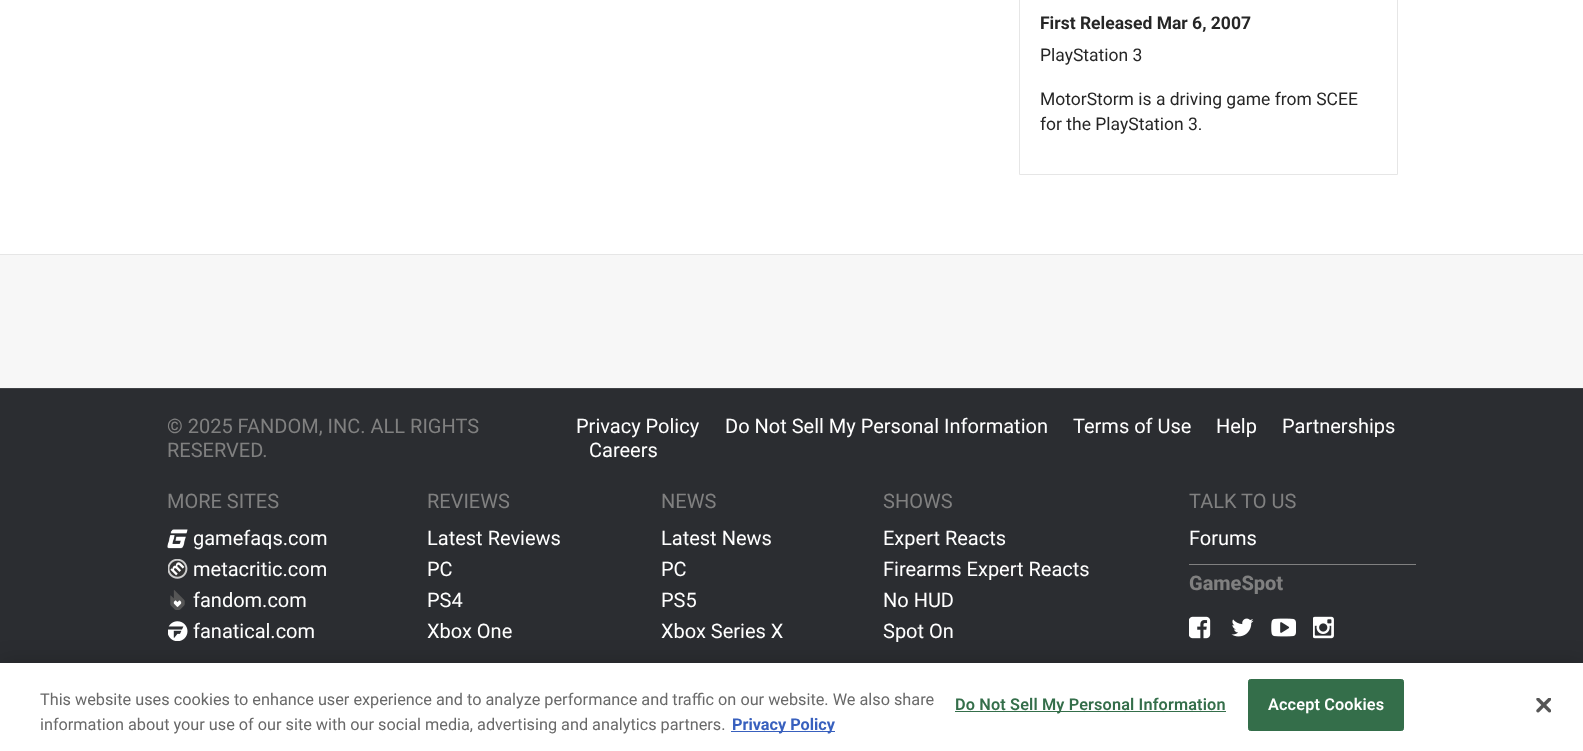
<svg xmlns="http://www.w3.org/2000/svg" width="1583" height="751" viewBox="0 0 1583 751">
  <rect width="100%" height="100%" fill="#fff"/>
  <path d="M1019.5 -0.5h378v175H1019.5z" fill="none" stroke="#e6e6e6"/>
  <path d="M0 255h1583v133H0z" fill="#f7f7f7"/>
  <path d="M0 254h1583v1H0z" fill="#e6e6e6"/>
  <path d="M0 389h1583v274H0z" fill="#2b2d31"/>
  <path d="M0 388h1583v1H0z" fill="#404246"/>
  <image x="167" y="529" width="21" height="20" href="img/1.png"/>
  <image x="168" y="559" width="20" height="20" href="img/2.png"/>
  <image x="170" y="590" width="15" height="20" href="img/3.png"/>
  <image x="168" y="621" width="20" height="20" href="img/4.png"/>
  <path d="M1189 564h227v1H1189z" fill="#808080"/>
  <image x="1189" y="616" width="22" height="23" href="img/5.png"/>
  <image x="1231" y="618" width="23" height="19" href="img/6.png"/>
  <image x="1271" y="618" width="25" height="19" href="img/7.png"/>
  <image x="1313" y="616" width="21" height="23" href="img/8.png"/>
  <path d="M0 663h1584v88H0z" fill="#00000033" filter="blur(11px)"/>
  <path d="M0 663h1583v88H0z" fill="#fff"/>
  <path d="M731 731h104v1H731z" fill="#3860be"/>
  <path d="M955 711h271v1H955z" fill="#346e4a"/>
  <rect x="1248.5" y="679.5" width="155" height="51" rx="2" fill="#346e4a" stroke="#346e4a"/>
  <image x="1536" y="698" width="15" height="15" href="img/9.png"/>
  <text x="1040" y="29" font-family="Roboto" font-size="17.5" font-weight="bold" fill="#262626">First Released Mar 6, 2007</text>
  <g font-family="Roboto" font-size="17.5" fill="#262626">
    <text x="1040" y="61">PlayStation 3</text>
    <text x="1040" y="105">MotorStorm is a driving game from SCEE</text>
    <text x="1040" y="130">for the PlayStation 3.</text>
  </g>
  <g font-family="Roboto" font-size="20" fill="#808080">
    <text x="167" y="433">© 2025 FANDOM, INC. ALL RIGHTS</text>
    <text x="167" y="457">RESERVED.</text>
  </g>
  <g font-family="Roboto" font-size="20" fill="#fff">
    <text x="576" y="433">Privacy Policy</text>
    <text x="725" y="433">Do Not Sell My Personal Information</text>
    <text x="1073" y="433">Terms of Use</text>
    <text x="1216" y="433">Help</text>
    <text x="1282" y="433">Partnerships</text>
    <text x="589" y="457">Careers</text>
  </g>
  <text x="167" y="508" font-family="Roboto" font-size="20" fill="#808080">MORE SITES</text>
  <g font-family="Roboto" font-size="20" fill="#fff">
    <text x="193" y="545">gamefaqs.com</text>
    <text x="193" y="576">metacritic.com</text>
    <text x="193" y="607">fandom.com</text>
    <text x="193" y="638">fanatical.com</text>
  </g>
  <text x="427" y="508" font-family="Roboto" font-size="20" fill="#808080">REVIEWS</text>
  <g font-family="Roboto" font-size="20" fill="#fff">
    <text x="427" y="545">Latest Reviews</text>
    <text x="427" y="576">PC</text>
    <text x="427" y="607">PS4</text>
    <text x="427" y="638">Xbox One</text>
  </g>
  <text x="661" y="508" font-family="Roboto" font-size="20" fill="#808080">NEWS</text>
  <g font-family="Roboto" font-size="20" fill="#fff">
    <text x="661" y="545">Latest News</text>
    <text x="661" y="576">PC</text>
    <text x="661" y="607">PS5</text>
    <text x="661" y="638">Xbox Series X</text>
  </g>
  <text x="883" y="508" font-family="Roboto" font-size="20" fill="#808080">SHOWS</text>
  <g font-family="Roboto" font-size="20" fill="#fff">
    <text x="883" y="545">Expert Reacts</text>
    <text x="883" y="576">Firearms Expert Reacts</text>
    <text x="883" y="607">No HUD</text>
    <text x="883" y="638">Spot On</text>
  </g>
  <text x="1189" y="508" font-family="Roboto" font-size="20" fill="#808080">TALK TO US</text>
  <text x="1189" y="545" font-family="Roboto" font-size="20" fill="#fff">Forums</text>
  <text x="1189" y="590" font-family="Roboto" font-size="20" font-weight="800" fill="#808080">GameSpot</text>
  <g font-family="Roboto" font-size="16.25" fill="#696969">
    <text x="40" y="705">This website uses cookies to enhance user experience and to analyze performance and traffic on our website. We also share</text>
    <text x="40" y="730">information about your use of our site with our social media, advertising and analytics partners.</text>
  </g>
  <text x="732" y="730" font-family="Roboto" font-size="16.25" font-weight="bold" fill="#3860be">Privacy Policy</text>
  <text x="955" y="710" font-family="Roboto" font-size="16.25" font-weight="600" letter-spacing="0.15" fill="#346e4a">Do Not Sell My Personal Information</text>
  <text x="1268" y="710" font-family="Roboto" font-size="16.25" font-weight="600" letter-spacing="0.15" fill="#fff">Accept Cookies</text>
</svg>
